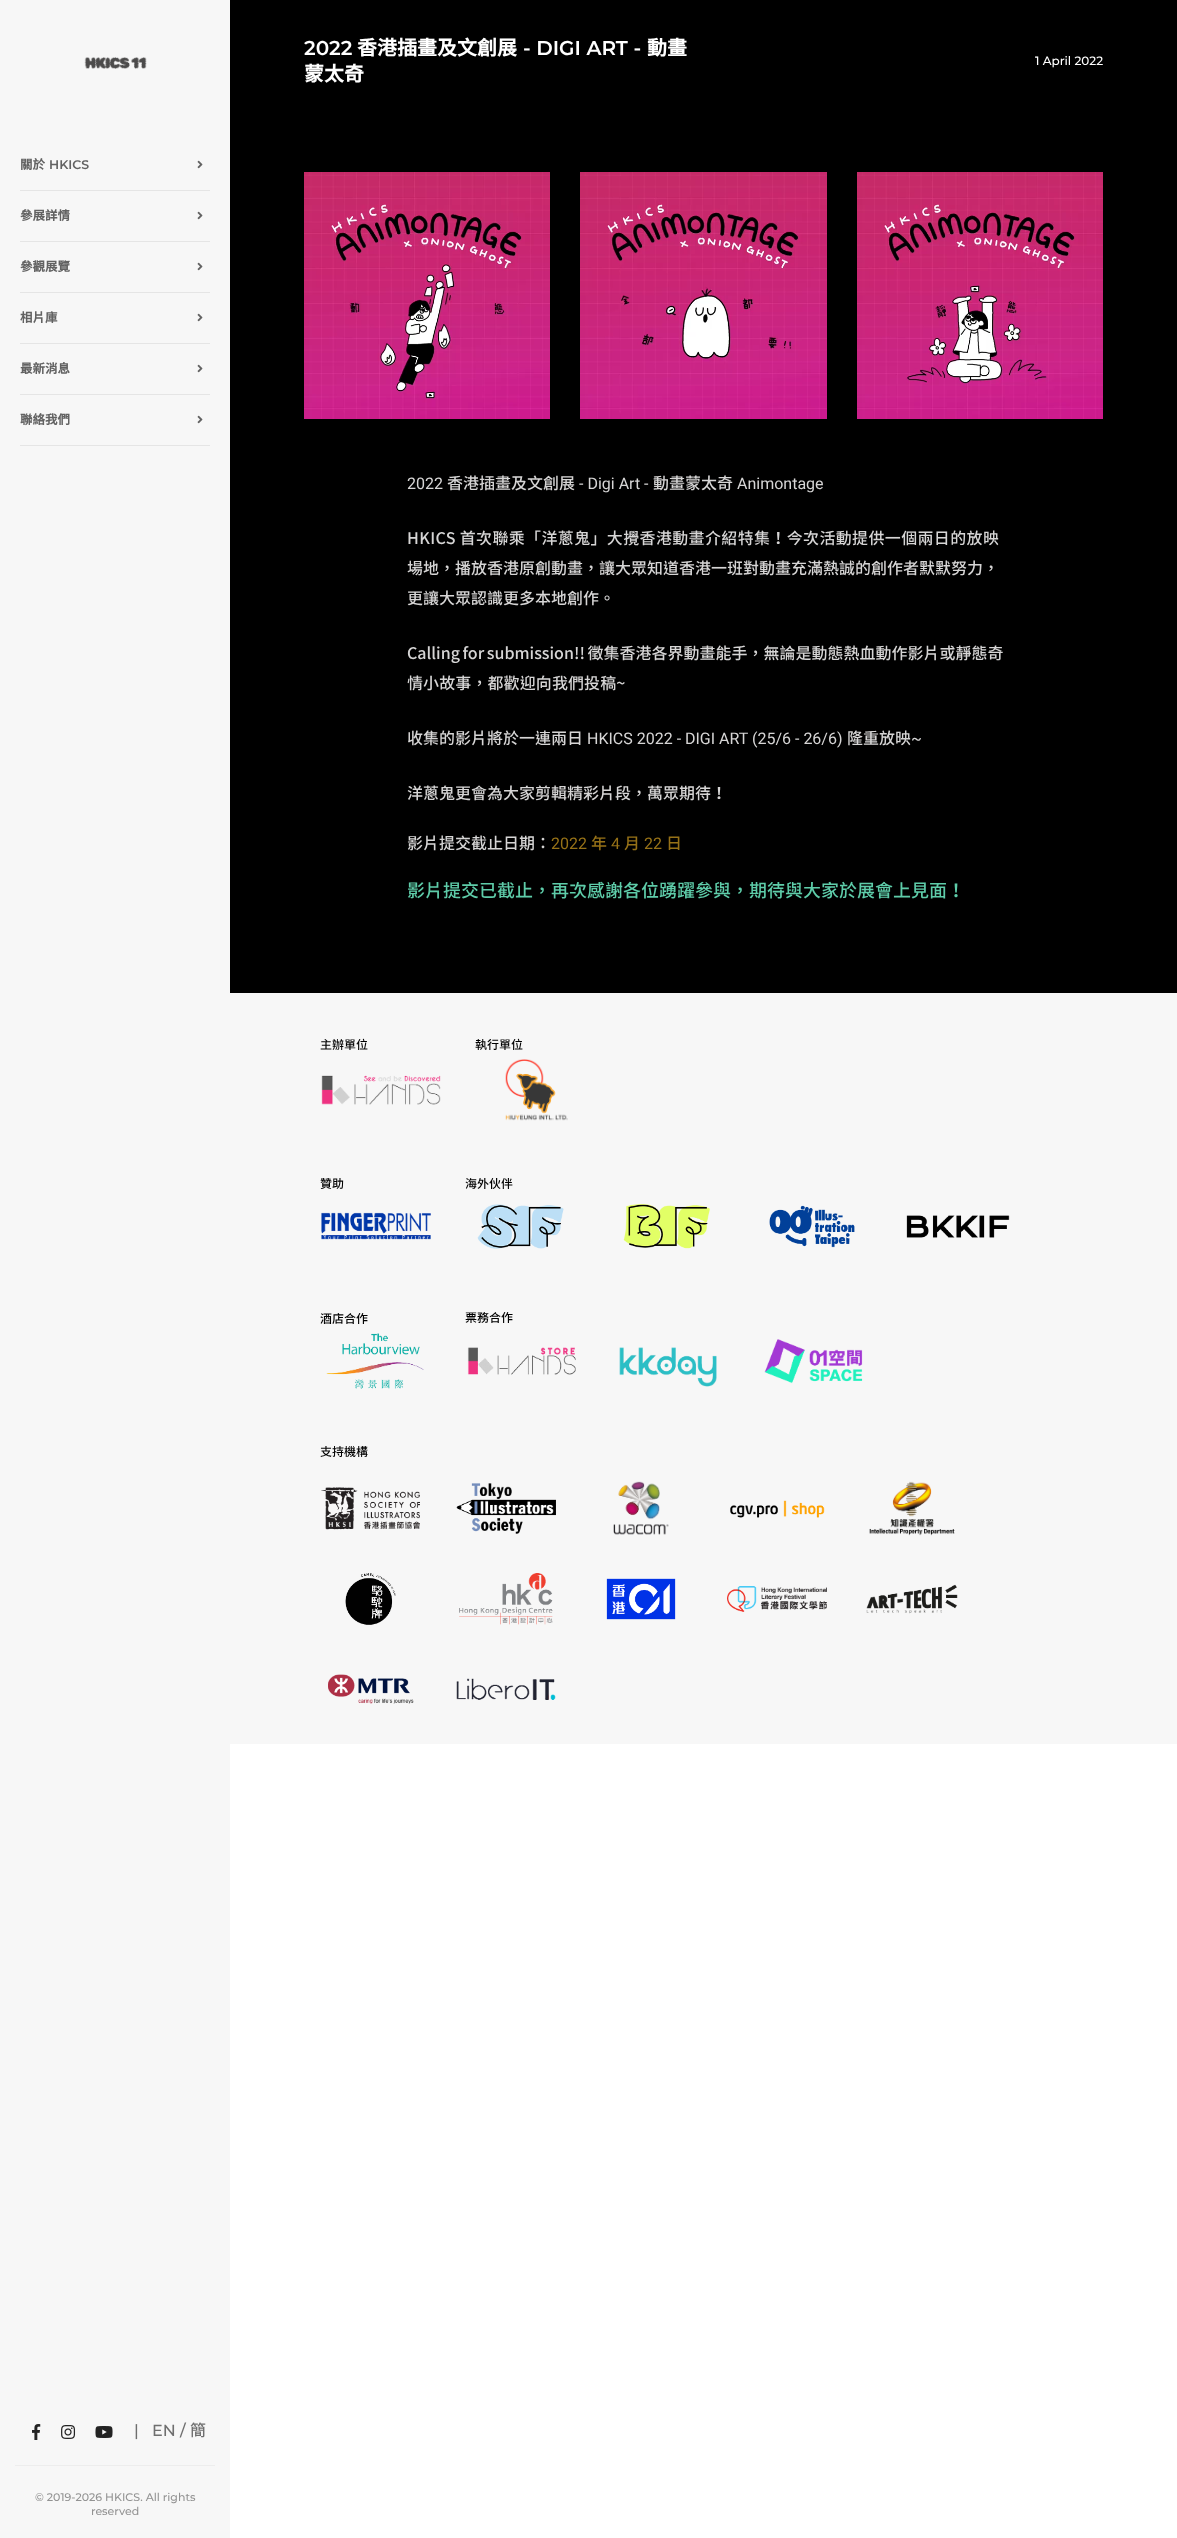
<svg xmlns="http://www.w3.org/2000/svg" width="1177" height="2538" viewBox="0 0 1177 2538">
  <rect width="100%" height="100%" fill="#fff"/>
  <path d="M0 0h230v2538H0z" fill="#f7f7f7"/>
  <image x="84" y="57" width="63" height="12" href="img/1.png"/>
  <path d="M20 190h190v1H20z" fill="#e5e5e5"/>
  <image x="197" y="160" width="6" height="9" href="img/2.png"/>
  <path d="M20 241h190v1H20z" fill="#e5e5e5"/>
  <image x="197" y="211" width="6" height="9" href="img/2.png"/>
  <path d="M20 292h190v1H20z" fill="#e5e5e5"/>
  <image x="197" y="262" width="6" height="9" href="img/2.png"/>
  <path d="M20 343h190v1H20z" fill="#e5e5e5"/>
  <image x="197" y="313" width="6" height="9" href="img/2.png"/>
  <path d="M20 394h190v1H20z" fill="#e5e5e5"/>
  <image x="197" y="364" width="6" height="9" href="img/2.png"/>
  <path d="M20 445h190v1H20z" fill="#e5e5e5"/>
  <image x="197" y="415" width="6" height="9" href="img/2.png"/>
  <image x="32" y="2424" width="9" height="16" href="img/3.png"/>
  <image x="61" y="2425" width="15" height="14" href="img/4.png"/>
  <image x="95" y="2426" width="18" height="12" href="img/5.png"/>
  <path d="M15 2465h200v1H15z" fill="#ededed"/>
  <path d="M230 0h947v993H230z" fill="#000"/>
  <image x="304" y="172" width="246" height="247" href="img/6.png"/>
  <image x="580" y="172" width="247" height="247" href="img/7.png"/>
  <image x="857" y="172" width="246" height="247" href="img/8.png"/>
  <path d="M230 993h947v751H230z" fill="#f7f7f7"/>
  <image x="321" y="1075" width="120" height="30" href="img/9.png"/>
  <image x="505" y="1059" width="63" height="62" href="img/10.png"/>
  <image x="321" y="1212" width="110" height="28" href="img/11.png"/>
  <image x="477" y="1204" width="87" height="45" href="img/12.png"/>
  <image x="623" y="1204" width="87" height="45" href="img/13.png"/>
  <image x="769" y="1205" width="86" height="43" href="img/14.png"/>
  <image x="906" y="1215" width="104" height="23" href="img/15.png"/>
  <image x="326" y="1333" width="98" height="56" href="img/16.png"/>
  <image x="467" y="1347" width="109" height="28" href="img/17.png"/>
  <image x="619" y="1347" width="98" height="40" href="img/18.png"/>
  <image x="764" y="1339" width="99" height="45" href="img/19.png"/>
  <image x="321" y="1487" width="99" height="43" href="img/20.png"/>
  <image x="456" y="1483" width="100" height="51" href="img/21.png"/>
  <image x="613" y="1481" width="56" height="54" href="img/22.png"/>
  <image x="730" y="1500" width="95" height="18" href="img/23.png"/>
  <image x="869" y="1481" width="86" height="55" href="img/24.png"/>
  <image x="345" y="1573" width="51" height="52" href="img/25.png"/>
  <image x="459" y="1573" width="94" height="52" href="img/26.png"/>
  <image x="606" y="1578" width="70" height="42" href="img/27.png"/>
  <image x="727" y="1586" width="100" height="26" href="img/28.png"/>
  <image x="866" y="1584" width="92" height="30" href="img/29.png"/>
  <image x="328" y="1674" width="86" height="30" href="img/30.png"/>
  <image x="456" y="1678" width="100" height="22" href="img/31.png"/>
  <text x="20" y="169" font-family="Noto Sans TC" font-size="12.5" font-weight="bold" fill="#626262">關於</text>
  <text x="49" y="169" font-family="Montserrat" font-size="12.5" font-weight="600" fill="#626262">HKICS</text>
  <g font-family="Noto Sans TC" font-size="12.5" font-weight="bold" fill="#626262">
    <text x="20" y="220">參展詳情</text>
    <text x="20" y="271">參觀展覽</text>
    <text x="20" y="322">相片庫</text>
    <text x="20" y="373">最新消息</text>
    <text x="20" y="424">聯絡我們</text>
  </g>
  <g font-family="Montserrat" font-size="16" font-weight="500" fill="#6f6f6f">
    <text x="134" y="2436">|</text>
    <text x="152" y="2436">EN /</text>
  </g>
  <text x="190" y="2436" font-family="Noto Sans TC" font-size="16" font-weight="500" fill="#6f6f6f">簡</text>
  <g font-family="Montserrat" font-size="11" font-weight="500" fill="#939393">
    <text x="35" y="2501">© 2019-2026 HKICS. All rights</text>
    <text x="91" y="2515">reserved</text>
  </g>
  <text x="304" y="55" font-family="Montserrat" font-size="20" font-weight="600" fill="#fff">2022</text>
  <text x="357" y="55" font-family="Noto Sans TC" font-size="20" font-weight="bold" fill="#fff">香港插畫及文創展</text>
  <text x="523" y="55" font-family="Montserrat" font-size="20" font-weight="600" fill="#fff">- DIGI ART -</text>
  <g font-family="Noto Sans TC" font-size="20" font-weight="bold" fill="#fff">
    <text x="647" y="55">動畫</text>
    <text x="304" y="81">蒙太奇</text>
  </g>
  <text x="1035" y="65" font-family="Montserrat" font-size="12" font-weight="500" fill="#fff">1 April 2022</text>
  <text x="407" y="489" font-family="Roboto" font-size="16" fill="#d6d5d5">2022</text>
  <text x="447" y="489" font-family="Noto Sans TC" font-size="16" font-weight="500" fill="#d6d5d5">香港插畫及文創展</text>
  <text x="579" y="489" font-family="Roboto" font-size="16" fill="#d6d5d5">- Digi Art -</text>
  <text x="653" y="489" font-family="Noto Sans TC" font-size="16" font-weight="500" fill="#d6d5d5">動畫蒙太奇</text>
  <text x="737" y="489" font-family="Roboto" font-size="16" fill="#d6d5d5">Animontage</text>
  <text x="407" y="544" font-family="Noto Sans TC" font-size="16" font-weight="500" letter-spacing="0.35" fill="#d6d5d5">HKICS 首次聯乘「洋蔥鬼」大攪香港動畫介紹特集！今次活動提供一個兩日的放映</text>
  <g font-family="Noto Sans TC" font-size="16" font-weight="500" fill="#d6d5d5">
    <text x="407" y="574">場地，播放香港原創動畫，讓大眾知道香港一班對動畫充滿熱誠的創作者默默努力，</text>
    <text x="407" y="604">更讓大眾認識更多本地創作。</text>
    <text x="407" y="659" word-spacing="-1">Calling for submission!! 徵集香港各界動畫能手，無論是動態熱血動作影片或靜態奇</text>
  </g>
  <text x="407" y="689" font-family="Noto Sans TC" font-size="16" font-weight="500" letter-spacing="0.1" fill="#d6d5d5">情小故事，都歡迎向我們投稿~</text>
  <text x="407" y="744" font-family="Noto Sans TC" font-size="16" font-weight="500" fill="#d6d5d5">收集的影片將於一連兩日</text>
  <text x="587" y="744" font-family="Roboto" font-size="16" fill="#d6d5d5">HKICS 2022 - DIGI ART (25/6 - 26/6)</text>
  <text x="847" y="744" font-family="Noto Sans TC" font-size="16" font-weight="500" fill="#d6d5d5">隆重放映</text>
  <text x="911" y="744" font-family="Roboto" font-size="16" fill="#d6d5d5">~</text>
  <g font-family="Noto Sans TC" font-size="16" font-weight="500" fill="#d6d5d5">
    <text x="407" y="799">洋蔥鬼更會為大家剪輯精彩片段，萬眾期待！</text>
    <text x="407" y="849">影片提交截止日期：</text>
  </g>
  <text x="551" y="849" font-family="Roboto" font-size="16" fill="#967117">2022</text>
  <text x="591" y="849" font-family="Noto Sans TC" font-size="16" font-weight="500" fill="#967117">年</text>
  <text x="611" y="849" font-family="Roboto" font-size="16" fill="#967117">4</text>
  <text x="624" y="849" font-family="Noto Sans TC" font-size="16" font-weight="500" fill="#967117">月</text>
  <text x="644" y="849" font-family="Roboto" font-size="16" fill="#967117">22</text>
  <text x="666" y="849" font-family="Noto Sans TC" font-size="16" font-weight="500" fill="#967117">日</text>
  <text x="407" y="897" font-family="Noto Sans TC" font-size="18" font-weight="500" fill="#5ecca9">影片提交已截止，再次感謝各位踴躍參與，期待與大家於展會上見面！</text>
  <g font-family="Noto Sans TC" font-size="12" font-weight="500" fill="#000">
    <text x="320" y="1049">主辦單位</text>
    <text x="475" y="1049">執行單位</text>
    <text x="320" y="1188">贊助</text>
    <text x="465" y="1188">海外伙伴</text>
    <text x="320" y="1323">酒店合作</text>
    <text x="465" y="1322">票務合作</text>
    <text x="320" y="1456">支持機構</text>
  </g>
</svg>
